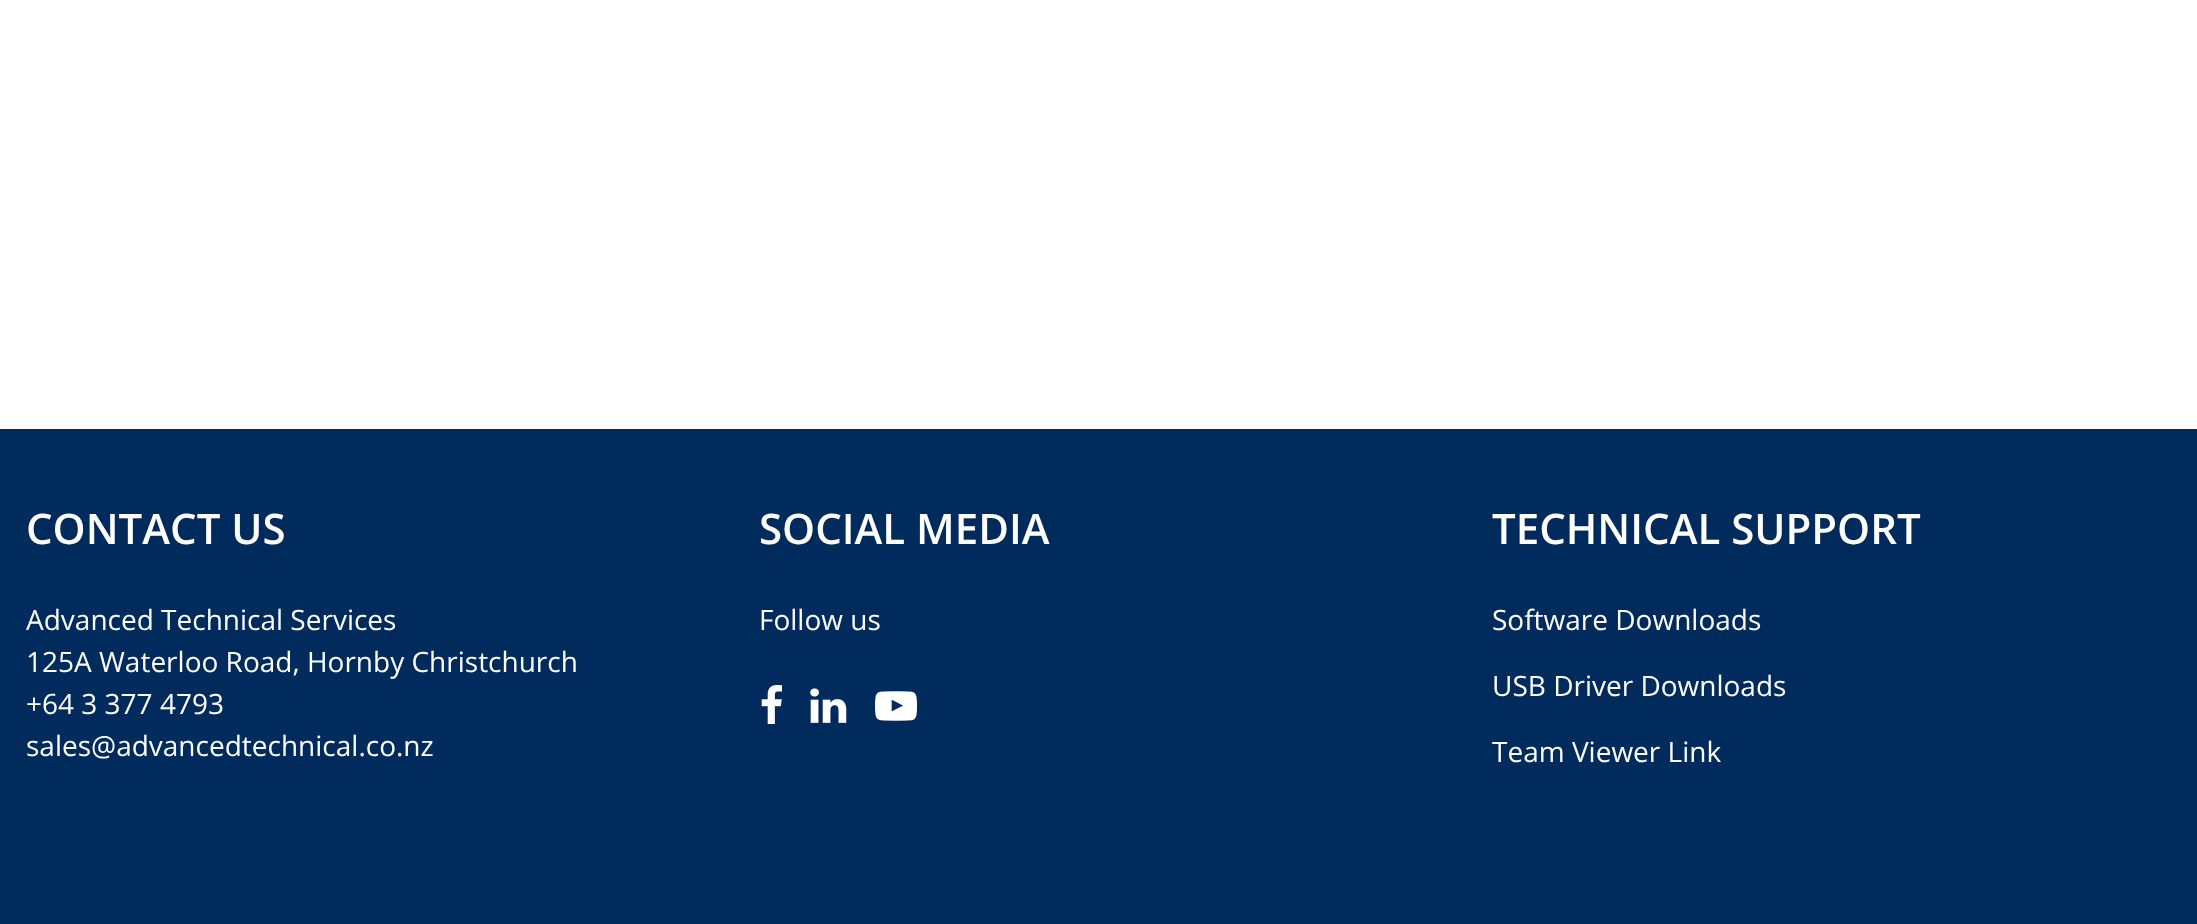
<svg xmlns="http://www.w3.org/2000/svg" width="2197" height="924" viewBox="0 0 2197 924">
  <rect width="100%" height="100%" fill="#002b5c"/>
  <path d="M0 0h2197v429H0z" fill="#fff"/>
  <image x="761" y="685" width="21" height="39" href="img/1.png"/>
  <image x="810" y="688" width="37" height="35" href="img/2.png"/>
  <image x="875" y="691" width="42" height="30" href="img/3.png"/>
  <text x="26" y="544" font-family="Open Sans" font-size="42" font-weight="600" fill="#fefefe">CONTACT US</text>
  <g font-family="Open Sans" font-size="28" fill="#fefefe">
    <text x="26" y="630">Advanced Technical Services</text>
    <text x="26" y="672">125A Waterloo Road, Hornby Christchurch</text>
    <text x="26" y="714">+64 3 377 4793</text>
    <text x="26" y="756">sales@advancedtechnical.co.nz</text>
  </g>
  <text x="759" y="544" font-family="Open Sans" font-size="42" font-weight="600" fill="#fefefe">SOCIAL MEDIA</text>
  <text x="759" y="630" font-family="Open Sans" font-size="28" fill="#fefefe">Follow us</text>
  <text x="1492" y="544" font-family="Open Sans" font-size="42" font-weight="600" fill="#fefefe">TECHNICAL SUPPORT</text>
  <g font-family="Open Sans" font-size="28" fill="#fefefe">
    <text x="1492" y="630">Software Downloads</text>
    <text x="1492" y="696">USB Driver Downloads</text>
    <text x="1492" y="762">Team Viewer Link</text>
  </g>
</svg>
